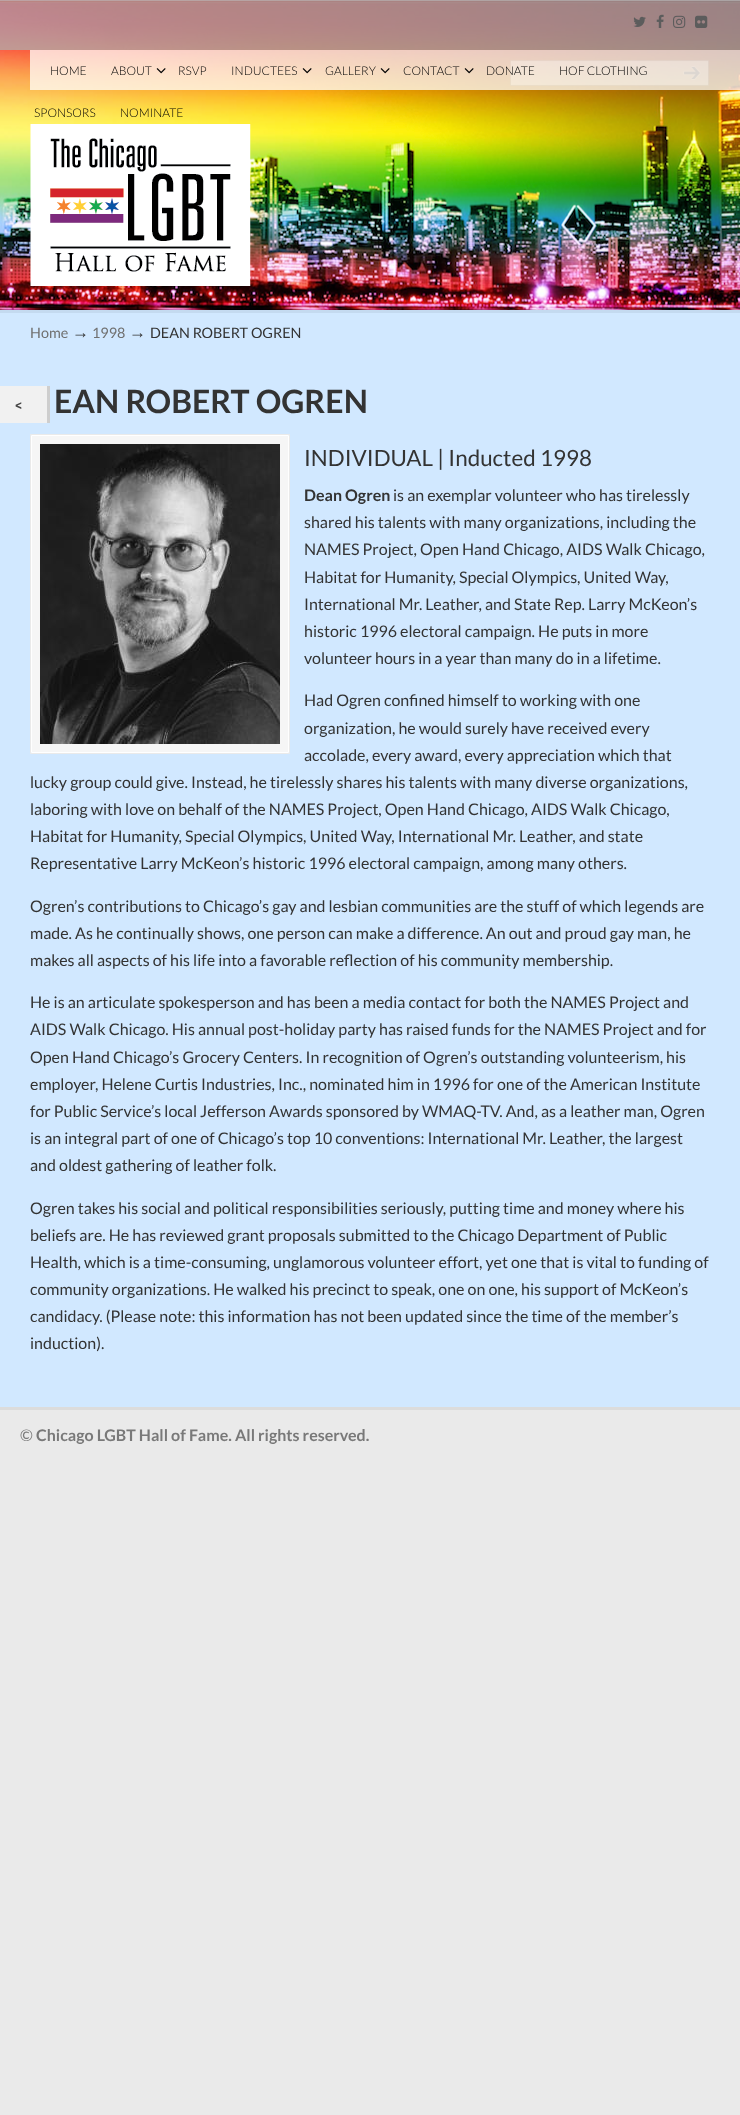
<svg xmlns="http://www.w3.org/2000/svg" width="740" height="2115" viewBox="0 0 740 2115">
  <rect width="100%" height="100%" fill="#eaeaea"/>
  <path d="M0 313h740v1094H0z" fill="#d1e8ff"/>
  <path d="M0 386h47v37H0z" fill="#f1f1f1"/>
  <path d="M47 386h3v37H47z" fill="#cecece"/>
  <image x="0" y="0" width="740" height="310" href="img/1.png"/>
  <path d="M0 0h740v50H0z" fill="#adadadbf"/>
  <image x="633" y="16" width="13" height="11" href="img/2.png"/>
  <image x="656" y="14" width="8" height="14" href="img/3.png"/>
  <image x="673" y="15" width="13" height="13" href="img/4.png"/>
  <image x="695" y="15" width="13" height="13" href="img/5.png"/>
  <image x="510" y="60" width="159" height="26" href="img/6.png"/>
  <image x="669" y="60" width="40" height="26" href="img/7.png"/>
  <image x="30" y="124" width="221" height="162" href="img/8.png"/>
  <path d="M30 50h710v40H30z" fill="#ffffffbf"/>
  <image x="156" y="68" width="10" height="6" href="img/9.png"/>
  <image x="302" y="68" width="10" height="6" href="img/10.png"/>
  <image x="380" y="68" width="10" height="6" href="img/11.png"/>
  <image x="464" y="68" width="10" height="6" href="img/12.png"/>
  <path d="M0 310h740v3H0z" fill="#c4daf0"/>
  <path d="M32 436h256v316H32z" fill="#f6f6f6"/>
  <path d="M30.5 434.5h259v319H30.5z" fill="none" stroke="#eaeaea"/>
  <path d="M31.5 435.5h257v317H31.5z" fill="none" stroke="#fff"/>
  <image x="40" y="444" width="240" height="300" href="img/13.png"/>
  <path d="M0 1407h740v3H0z" fill="#dcdcdc"/>
  <text x="15" y="410" font-family="Cabin" font-size="16" font-weight="bold" fill="#474747">&lt;</text>
  <g font-family="Lato" font-size="12" font-weight="300" fill="#000">
    <text x="50" y="75">HOME</text>
    <text x="111" y="75">ABOUT</text>
    <text x="178" y="75">RSVP</text>
    <text x="231" y="75">INDUCTEES</text>
    <text x="325" y="75">GALLERY</text>
    <text x="403" y="75">CONTACT</text>
    <text x="486" y="75">DONATE</text>
    <text x="559" y="75">HOF CLOTHING</text>
    <text x="34" y="117">SPONSORS</text>
    <text x="120" y="117">NOMINATE</text>
  </g>
  <text x="30" y="338" font-family="Lato" font-size="14.4" fill="#707070">Home</text>
  <text x="72" y="338" font-family="Liberation Serif" font-size="17" fill="#333">→</text>
  <text x="92" y="338" font-family="Lato" font-size="14.4" fill="#707070">1998</text>
  <text x="129" y="338" font-family="Liberation Serif" font-size="17" fill="#333">→</text>
  <text x="150" y="338" font-family="Lato" font-size="14.4" fill="#333">DEAN ROBERT OGREN</text>
  <text x="54" y="413" font-family="Lato" font-size="32" font-weight="bold" fill="#333">EAN ROBERT OGREN</text>
  <text x="304" y="466" font-family="Lato" font-size="22.4" fill="#333">INDIVIDUAL | Inducted 1998</text>
  <text x="304" y="501" font-family="Lato" font-size="16" font-weight="bold" fill="#333">Dean Ogren</text>
  <g font-family="Lato" font-size="16" fill="#333">
    <text x="393" y="501">is an exemplar volunteer who has tirelessly</text>
    <text x="304" y="528">shared his talents with many organizations, including the</text>
    <text x="304" y="555">NAMES Project, Open Hand Chicago, AIDS Walk Chicago,</text>
    <text x="304" y="583">Habitat for Humanity, Special Olympics, United Way,</text>
    <text x="304" y="610">International Mr. Leather, and State Rep. Larry McKeon’s</text>
    <text x="304" y="637">historic 1996 electoral campaign. He puts in more</text>
    <text x="304" y="664">volunteer hours in a year than many do in a lifetime.</text>
    <text x="304" y="706">Had Ogren confined himself to working with one</text>
    <text x="304" y="734">organization, he would surely have received every</text>
    <text x="304" y="761">accolade, every award, every appreciation which that</text>
    <text x="30" y="788">lucky group could give. Instead, he tirelessly shares his talents with many diverse organizations,</text>
    <text x="30" y="815">laboring with love on behalf of the NAMES Project, Open Hand Chicago, AIDS Walk Chicago,</text>
    <text x="30" y="842">Habitat for Humanity, Special Olympics, United Way, International Mr. Leather, and state</text>
    <text x="30" y="869">Representative Larry McKeon’s historic 1996 electoral campaign, among many others.</text>
    <text x="30" y="912">Ogren’s contributions to Chicago’s gay and lesbian communities are the stuff of which legends are</text>
    <text x="30" y="939">made. As he continually shows, one person can make a difference. An out and proud gay man, he</text>
    <text x="30" y="966">makes all aspects of his life into a favorable reflection of his community membership.</text>
    <text x="30" y="1008">He is an articulate spokesperson and has been a media contact for both the NAMES Project and</text>
    <text x="30" y="1035">AIDS Walk Chicago. His annual post-holiday party has raised funds for the NAMES Project and for</text>
    <text x="30" y="1063">Open Hand Chicago’s Grocery Centers. In recognition of Ogren’s outstanding volunteerism, his</text>
    <text x="30" y="1090">employer, Helene Curtis Industries, Inc., nominated him in 1996 for one of the American Institute</text>
    <text x="30" y="1117">for Public Service’s local Jefferson Awards sponsored by WMAQ-TV. And, as a leather man, Ogren</text>
    <text x="30" y="1144">is an integral part of one of Chicago’s top 10 conventions: International Mr. Leather, the largest</text>
    <text x="30" y="1171">and oldest gathering of leather folk.</text>
    <text x="30" y="1214">Ogren takes his social and political responsibilities seriously, putting time and money where his</text>
    <text x="30" y="1241">beliefs are. He has reviewed grant proposals submitted to the Chicago Department of Public</text>
    <text x="30" y="1268">Health, which is a time-consuming, unglamorous volunteer effort, yet one that is vital to funding of</text>
    <text x="30" y="1295">community organizations. He walked his precinct to speak, one on one, his support of McKeon’s</text>
    <text x="30" y="1322">candidacy. (Please note: this information has not been updated since the time of the member’s</text>
    <text x="30" y="1349">induction).</text>
  </g>
  <text x="20" y="1441" font-family="Lato" font-size="16" fill="#797979">©</text>
  <text x="36" y="1441" font-family="Lato" font-size="16" font-weight="bold" fill="#797979">Chicago LGBT Hall of Fame. All rights reserved.</text>
</svg>
